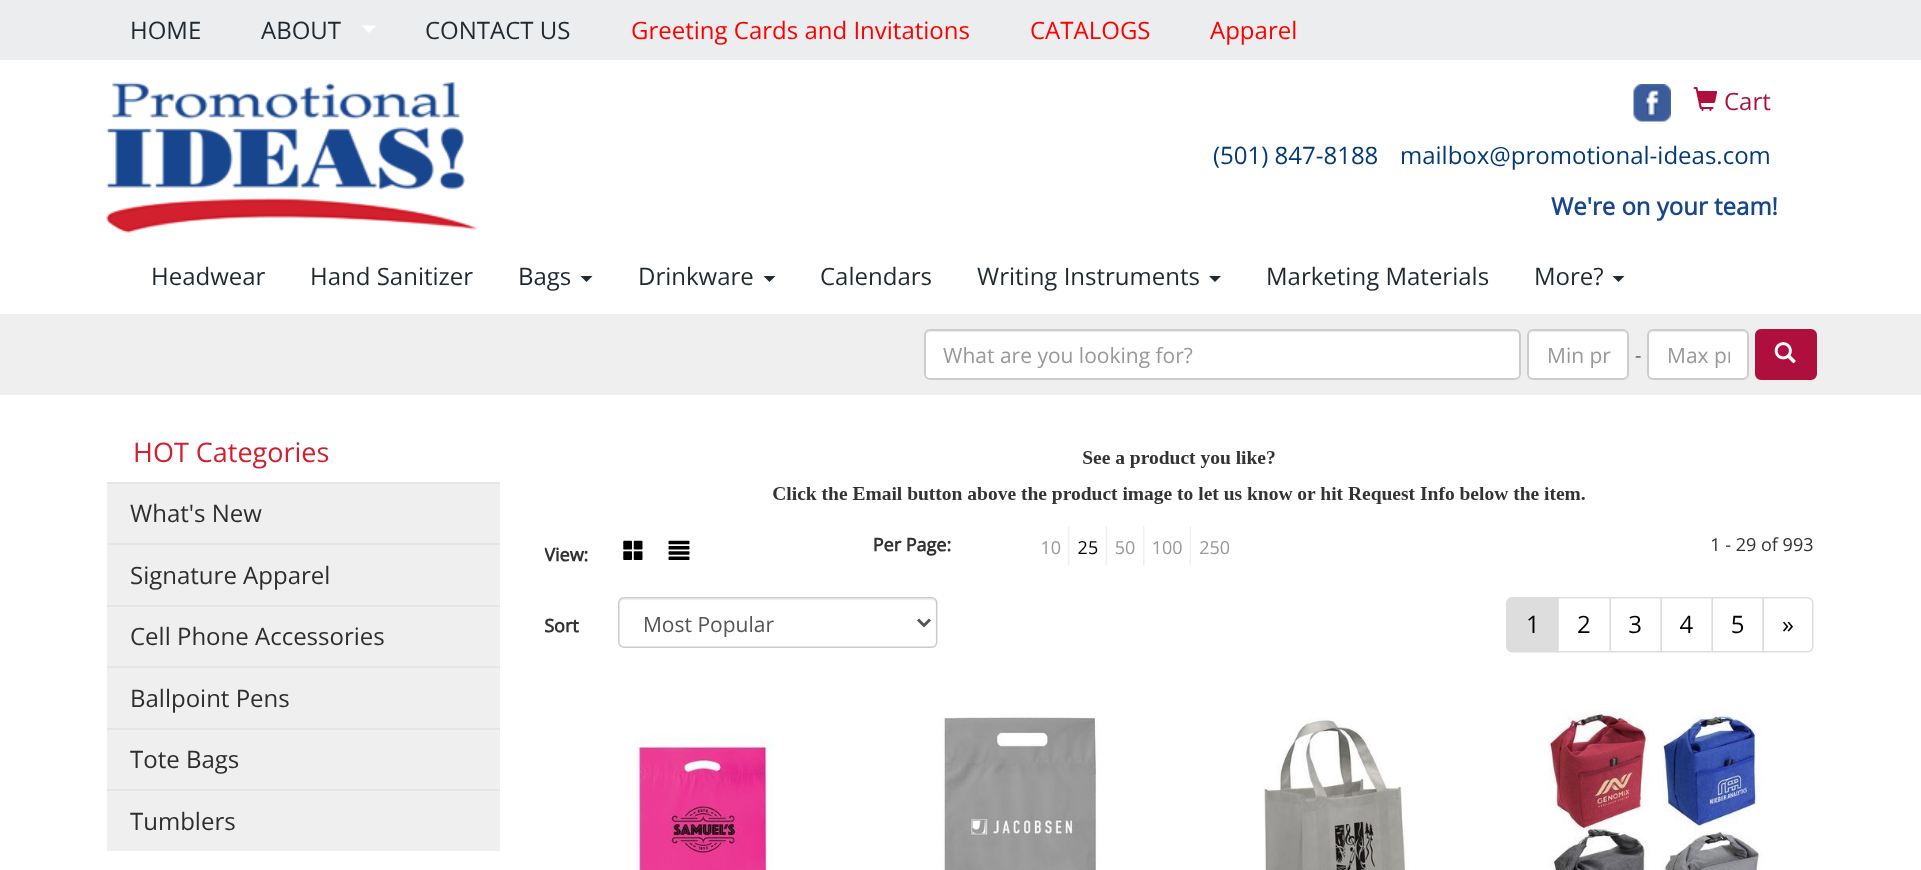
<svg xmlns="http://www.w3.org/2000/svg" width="1921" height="870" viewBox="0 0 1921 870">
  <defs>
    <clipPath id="clip1"><path d="M1667 341h63v28H1667z"/></clipPath>
  </defs>
  <rect width="100%" height="100%" fill="#fff"/>
  <path d="M0 0h1921v60H0z" fill="#ebedef"/>
  <path d="M361.5 25.5H376.5L369 33Z" fill="#fff"/>
  <image x="106" y="82" width="372" height="151" href="img/1.png"/>
  <image x="1633" y="84" width="38" height="38" href="img/2.png"/>
  <image x="1693" y="87" width="25" height="24" href="img/3.png"/>
  <path d="M580.5 276H592.5L586.5 282Z" fill="#212a31"/>
  <path d="M763.5 276H775.5L769.5 282Z" fill="#212a31"/>
  <path d="M1209 276H1221L1215 282Z" fill="#212a31"/>
  <path d="M1612.5 276H1624.5L1618.5 282Z" fill="#212a31"/>
  <path d="M0 314h1921v81H0z" fill="#efefef"/>
  <rect x="924" y="329" width="597" height="51" rx="6" fill="#fff"/>
  <path d="M930 332H1515C1517 332 1520 334 1520 336V335C1520 332 1518 330 1515 330H931C928 330 926 332 926 335V336C926 334 928 332 930 332Z" fill="#ececec"/>
  <rect x="925" y="330" width="595" height="49" rx="5" fill="none" stroke="#ccc" stroke-width="2"/>
  <rect x="1527" y="329" width="102" height="51" rx="6" fill="#fff"/>
  <path d="M1533 332H1623C1625 332 1628 334 1628 336V335C1628 332 1626 330 1623 330H1534C1532 330 1530 332 1529 334C1530 333 1532 332 1533 332Z" fill="#ececec"/>
  <rect x="1528" y="330" width="100" height="49" rx="5" fill="none" stroke="#ccc" stroke-width="2"/>
  <rect x="1647" y="329" width="102" height="51" rx="6" fill="#fff"/>
  <path d="M1653 332H1743C1745 332 1748 334 1748 336V335C1748 332 1746 330 1743 330H1654C1652 330 1650 332 1649 334C1650 333 1652 332 1653 332Z" fill="#ececec"/>
  <rect x="1648" y="330" width="100" height="49" rx="5" fill="none" stroke="#ccc" stroke-width="2"/>
  <rect x="1756" y="330" width="60" height="49" rx="5" fill="#af0f3d" stroke="#af0f3d" stroke-width="2"/>
  <image x="1774" y="342" width="22" height="22" href="img/4.png"/>
  <path d="M107 484h393v59H107z" fill="#efefef"/>
  <path d="M107 482h393v2H107z" fill="#e5e5e5"/>
  <path d="M107 545h393v60H107z" fill="#efefef"/>
  <path d="M107 543h393v2H107z" fill="#e5e5e5"/>
  <path d="M107 607h393v59H107z" fill="#efefef"/>
  <path d="M107 605h393v2H107z" fill="#e5e5e5"/>
  <path d="M107 668h393v60H107z" fill="#efefef"/>
  <path d="M107 666h393v2H107z" fill="#e5e5e5"/>
  <path d="M107 730h393v59H107z" fill="#efefef"/>
  <path d="M107 728h393v2H107z" fill="#e5e5e5"/>
  <path d="M107 791h393v60H107z" fill="#efefef"/>
  <path d="M107 789h393v2H107z" fill="#e5e5e5"/>
  <image x="544" y="451" width="1270" height="419" href="img/5.png"/>
  <g font-family="Open Sans" font-size="24" fill="#1f292f">
    <text x="130" y="39">HOME</text>
    <text x="261" y="39">ABOUT</text>
    <text x="425" y="39">CONTACT US</text>
  </g>
  <g font-family="Open Sans" font-size="24" fill="#f00">
    <text x="631" y="39">Greeting Cards and Invitations</text>
    <text x="1030" y="39">CATALOGS</text>
    <text x="1210" y="39">Apparel</text>
  </g>
  <text x="1724" y="110" font-family="Open Sans" font-size="24" fill="#af0f3d">Cart</text>
  <g font-family="Open Sans" font-size="24" fill="#023a77">
    <text x="1213" y="164">(501) 847-8188</text>
    <text x="1400" y="164">mailbox@promotional-ideas.com</text>
  </g>
  <text x="1551" y="215" font-family="Open Sans" font-size="24" font-weight="bold" fill="#17468f">We're on your team!</text>
  <g font-family="Open Sans" font-size="24" fill="#1f292f">
    <text x="151" y="285">Headwear</text>
    <text x="310" y="285">Hand Sanitizer</text>
    <text x="518" y="285">Bags</text>
    <text x="638" y="285">Drinkware</text>
    <text x="820" y="285">Calendars</text>
    <text x="977" y="285">Writing Instruments</text>
    <text x="1266" y="285">Marketing Materials</text>
    <text x="1534" y="285">More?</text>
  </g>
  <g font-family="Open Sans" font-size="21" fill="#999">
    <text x="943" y="363">What are you looking for?</text>
    <text x="1547" y="363">Min pr</text>
  </g>
  <text x="1635" y="362" font-family="Open Sans" font-size="18" font-weight="bold" fill="#7b7b7b">-</text>
  <g clip-path="url(#clip1)">
    <text x="1667" y="363" font-family="Open Sans" font-size="21" fill="#999">Max pr</text>
  </g>
  <text x="133" y="462" font-family="Open Sans" font-size="27" fill="#d2202f">HOT Categories</text>
  <g font-family="Open Sans" font-size="24" fill="#2e2e2e">
    <text x="130" y="522">What's New</text>
    <text x="130" y="584">Signature Apparel</text>
    <text x="130" y="645">Cell Phone Accessories</text>
    <text x="130" y="707">Ballpoint Pens</text>
    <text x="130" y="768">Tote Bags</text>
    <text x="130" y="830">Tumblers</text>
  </g>
</svg>
